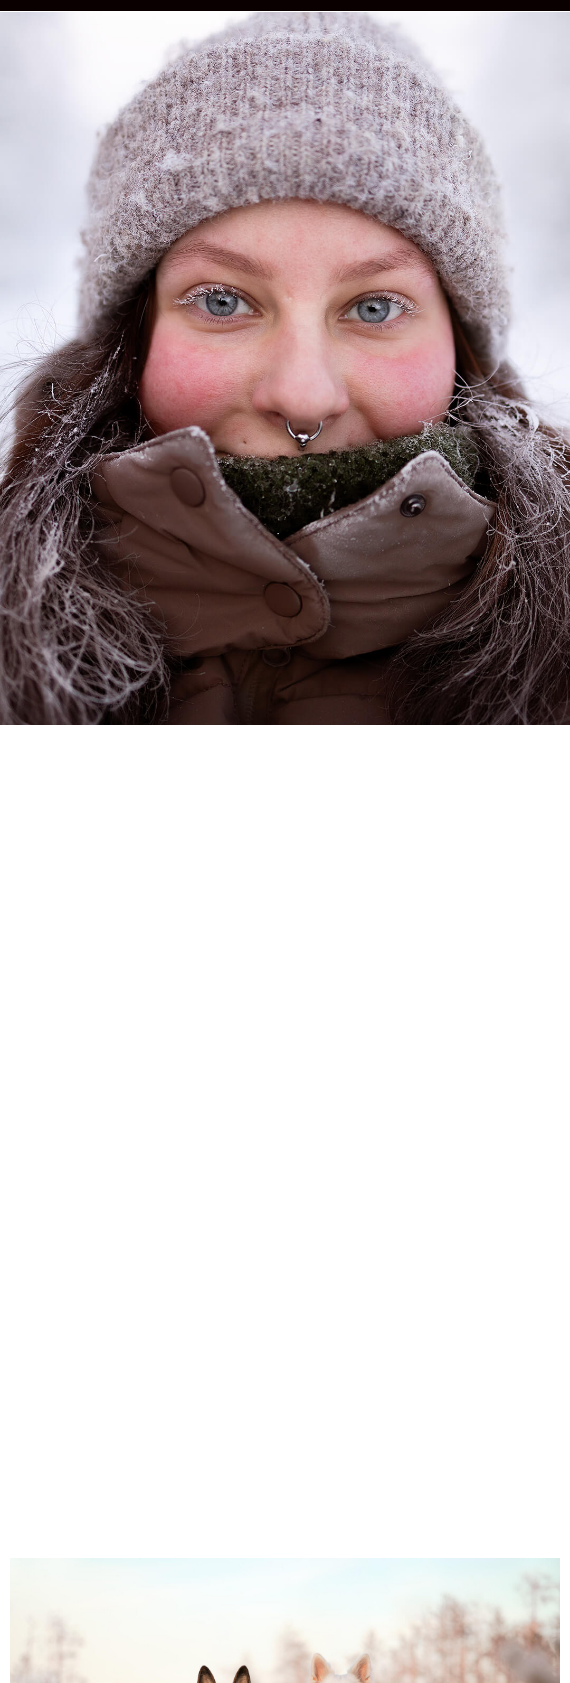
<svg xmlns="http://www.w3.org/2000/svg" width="570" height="1683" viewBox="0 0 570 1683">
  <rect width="100%" height="100%" fill="#0a0000"/>
  <path d="M0 11h570v1672H0z" fill="#fff"/>
  <image x="0" y="12" width="570" height="713" href="img/1.png"/>
  <image x="10" y="1558" width="550" height="125" href="img/2.png"/>
</svg>
